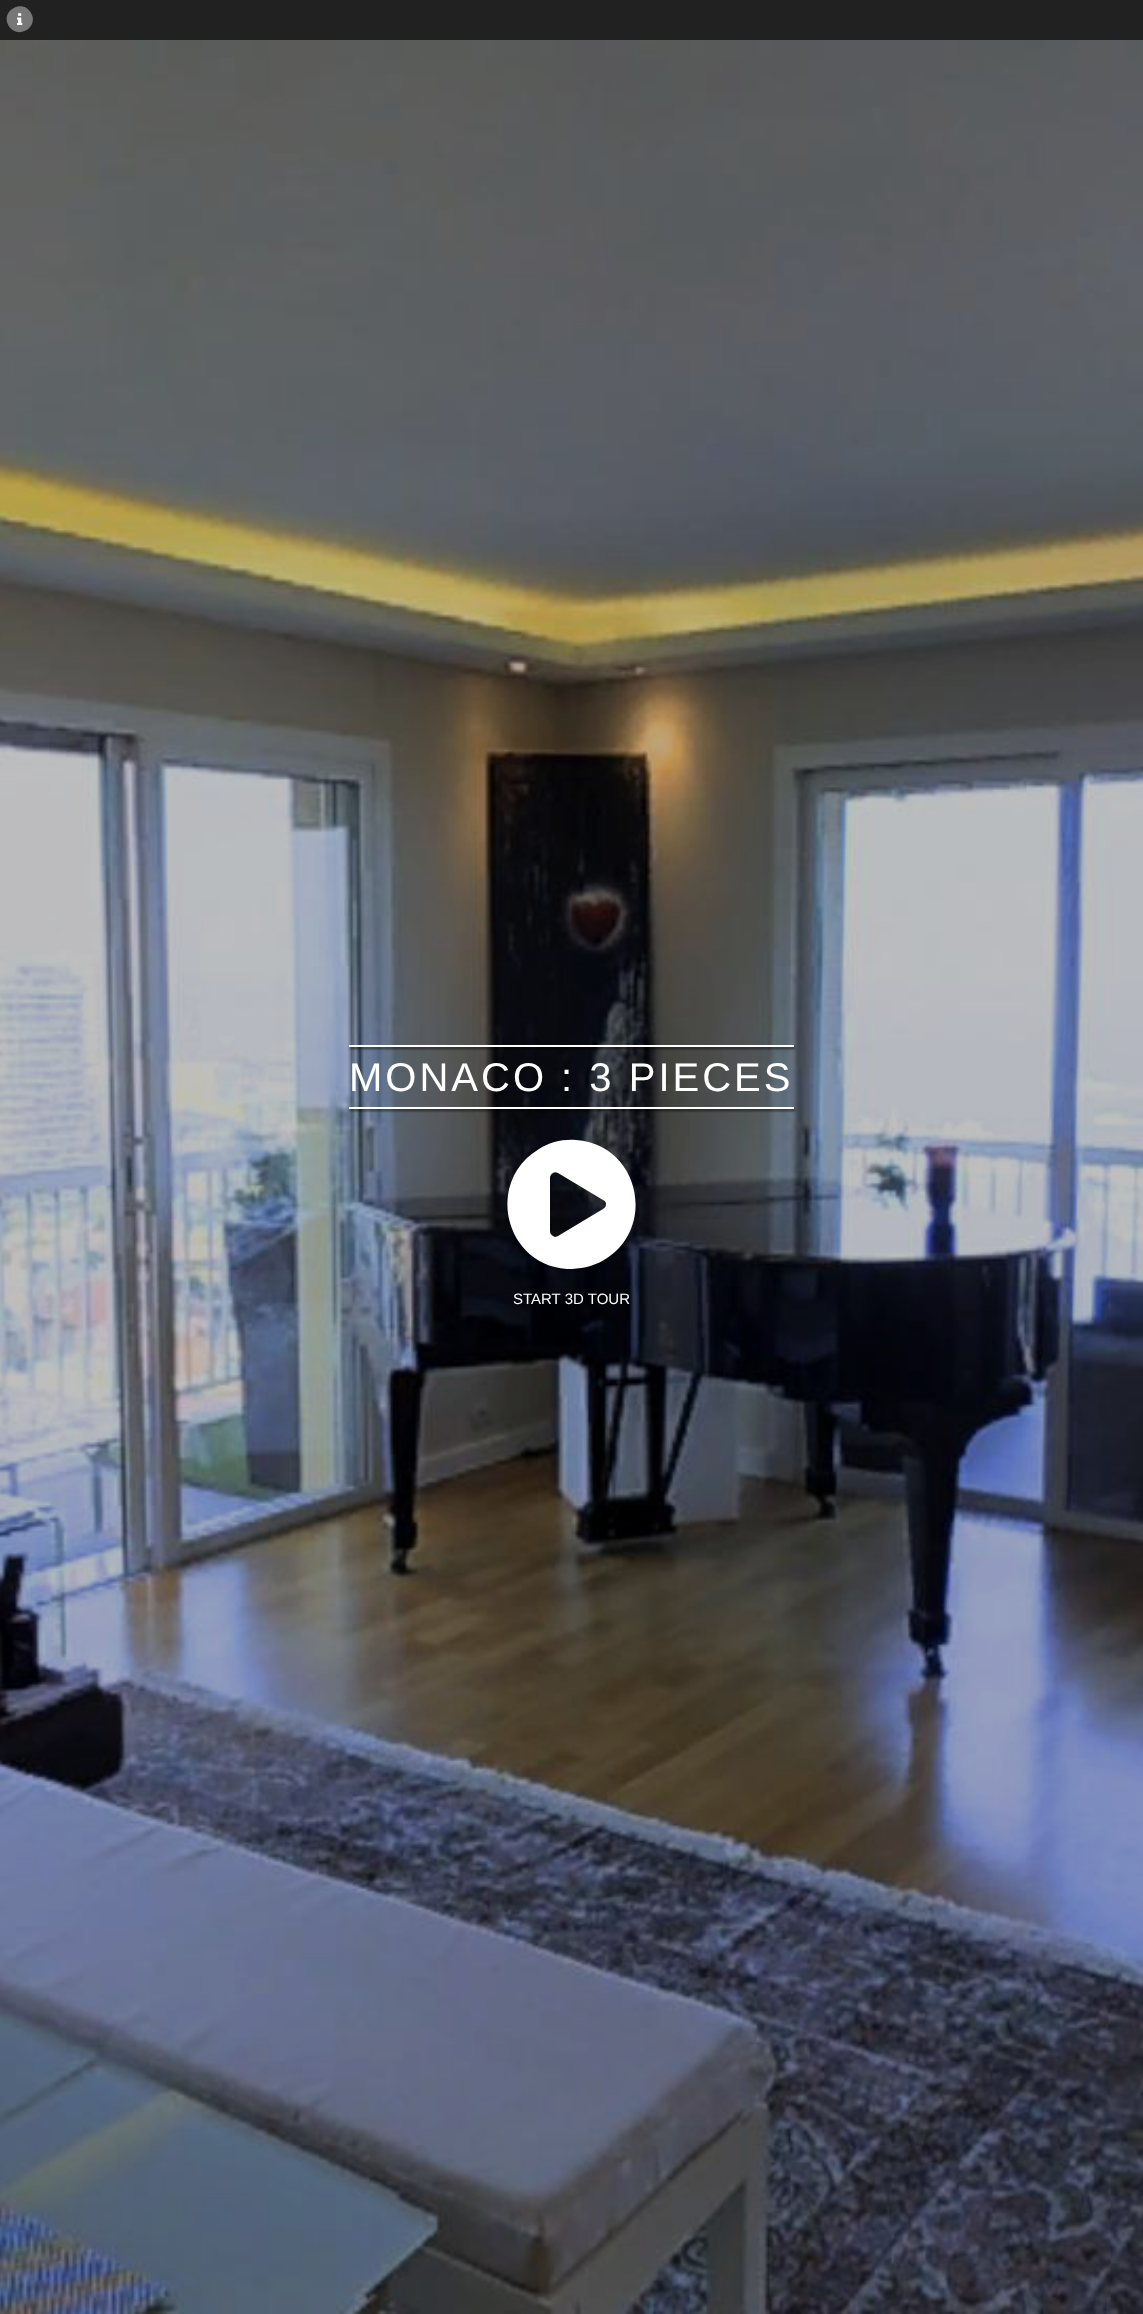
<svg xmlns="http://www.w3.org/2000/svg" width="1143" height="2314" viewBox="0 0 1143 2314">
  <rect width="100%" height="100%" fill="#212121"/>
  <path d="M31 13C39.5 27.5 17.5 40.5 8.5 25.5C0 11 22.5-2 31 13Z" fill="#777"/>
  <image x="17" y="13" width="6" height="12" href="img/1.png"/>
  <image x="0" y="40" width="1143" height="2274" href="img/2.png"/>
  <path d="M350 1047h445v2H350z" fill="#00000099" filter="blur(1px)"/>
  <path d="M349 1045h445v2H349z" fill="#fff"/>
  <path d="M350 1109h445v2H350z" fill="#00000099" filter="blur(1px)"/>
  <path d="M349 1107h445v2H349z" fill="#fff"/>
  <path d="M539 1149C550 1142 563 1139 576 1140C639 1144 658 1228 604 1260C592 1267 580 1269 567 1269C504 1265 485 1181 539 1149ZM603 1209C605 1208 606 1206 606 1204C606 1202 605 1201 603 1200L558 1173C556 1172 554 1172 553 1173C551 1174 550 1176 550 1178V1231C550 1233 551 1235 553 1236L555 1237L558 1236Z" fill="#fff"/>
  <text x="349" y="1091" font-family="Liberation Sans" font-size="40" letter-spacing="3" fill="#fff">MONACO : 3 PIECES</text>
  <text x="513" y="1304" font-family="Liberation Sans" font-size="15" fill="#fff">START 3D TOUR</text>
</svg>
